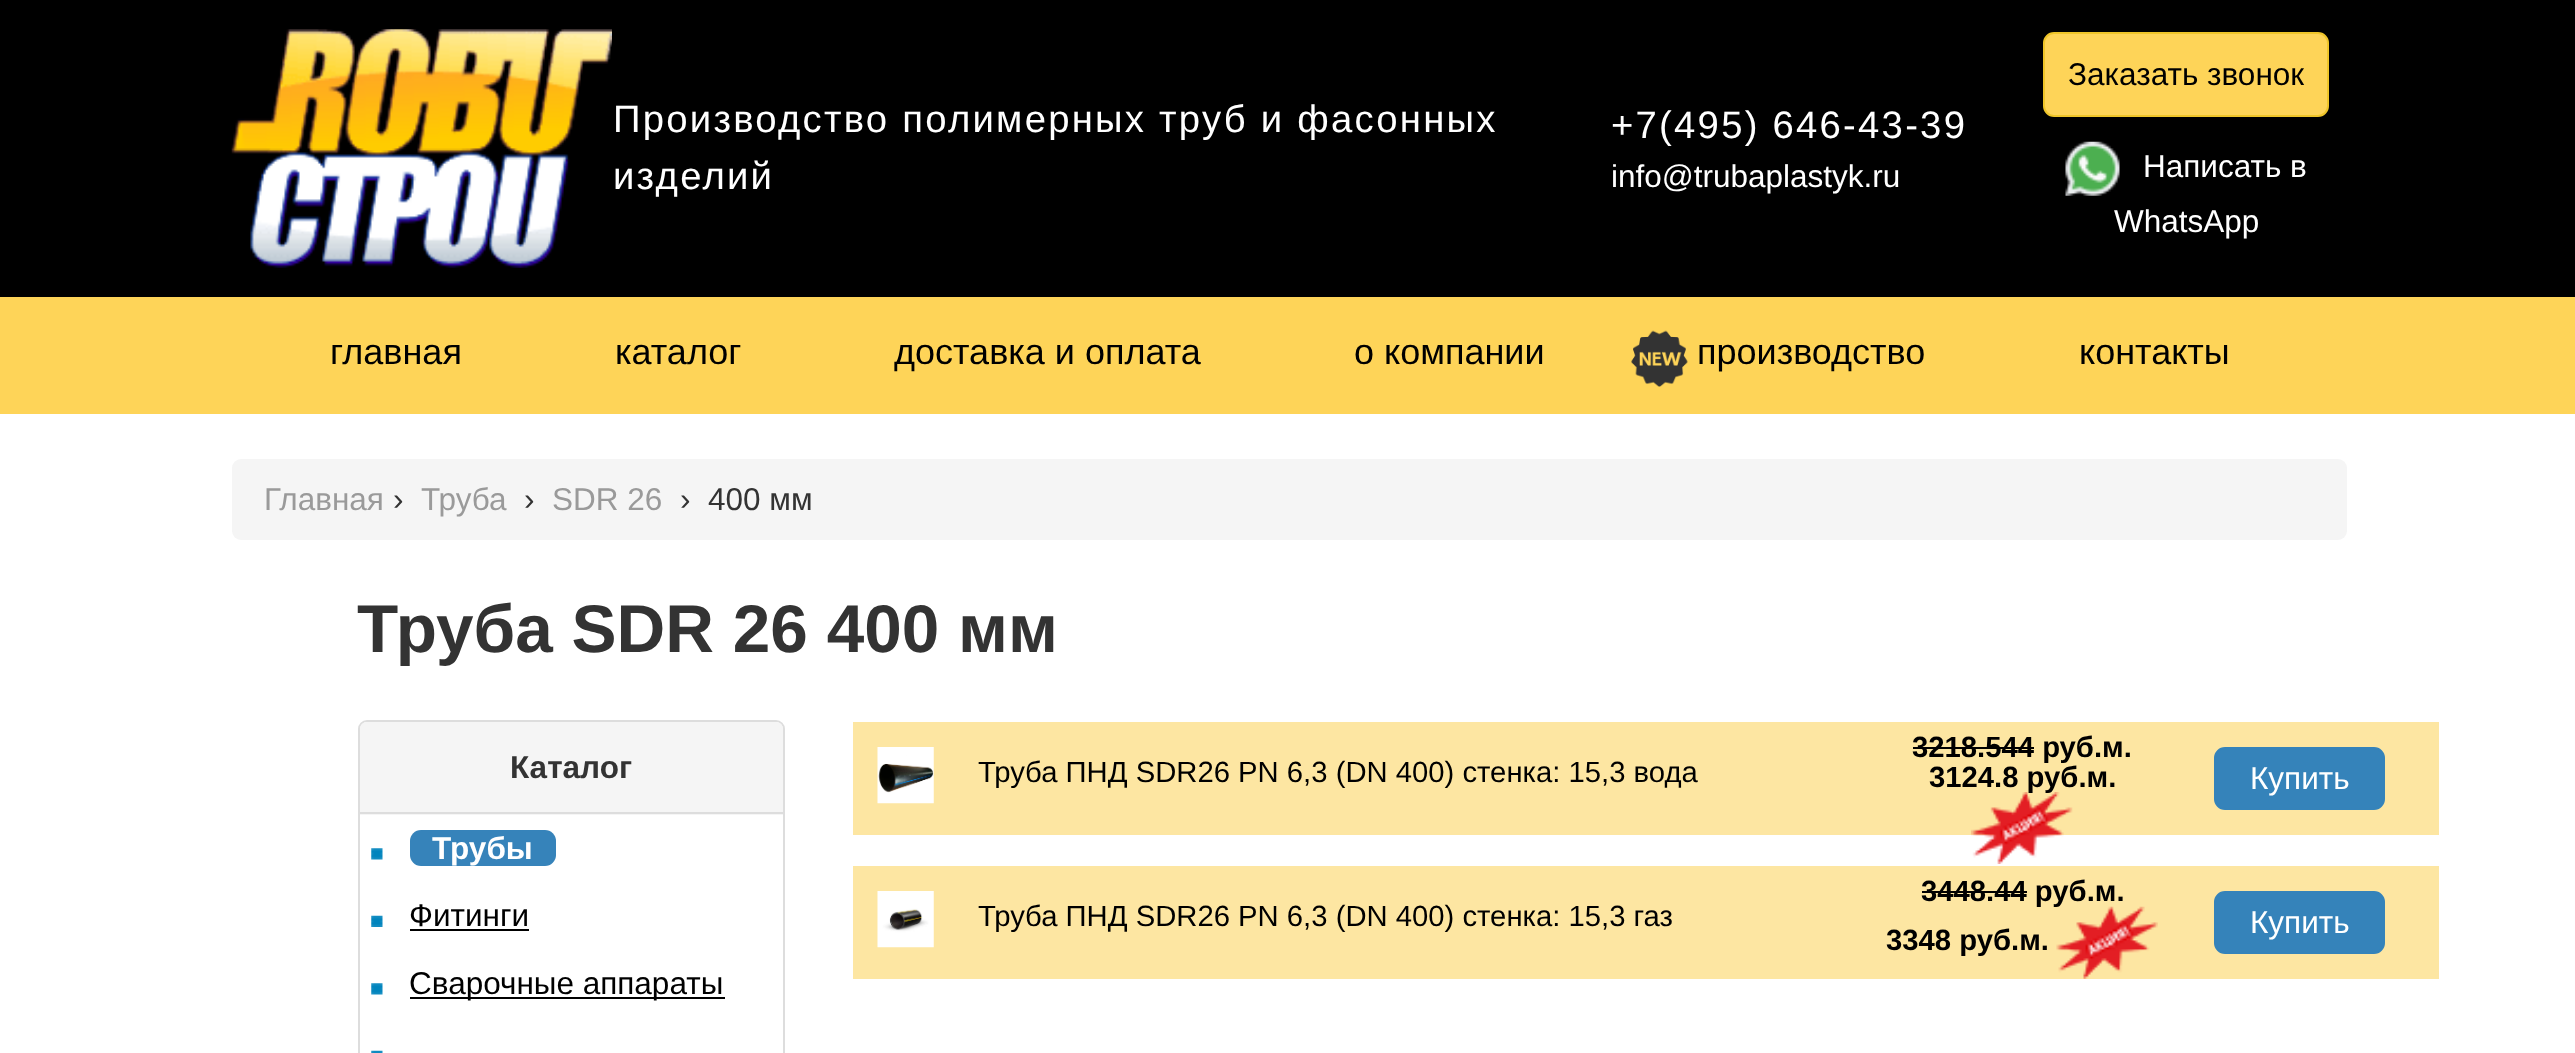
<svg xmlns="http://www.w3.org/2000/svg" width="2575" height="1053" viewBox="0 0 2575 1053">
  <rect width="100%" height="100%" fill="#fff"/>
  <path d="M0 0h2575v297H0z" fill="#000"/>
  <image x="231" y="29" width="381" height="239" href="img/1.png"/>
  <rect x="2044" y="33" width="284" height="83" rx="10" fill="#fed458" stroke="#efc529" stroke-width="2"/>
  <image x="2065" y="141" width="55" height="55" href="img/2.png"/>
  <path d="M0 297h2575v117H0z" fill="#fed458"/>
  <image x="1631" y="330" width="57" height="57" href="img/3.png"/>
  <rect x="232" y="459" width="2115" height="81" rx="9" fill="#f5f5f5"/>
  <rect x="359" y="721" width="425" height="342" rx="8" fill="none" stroke="#ddd" stroke-width="2"/>
  <path d="M367 722H776C780 722 783 725 783 729V815H360V729C360 725 363 722 367 722Z" fill="#f5f5f5"/>
  <path d="M360 812h423v2H360z" fill="#ddd"/>
  <image x="371" y="848" width="12" height="12" href="img/4.png"/>
  <rect x="410" y="830" width="146" height="36" rx="11" fill="#3683ba"/>
  <image x="371" y="915" width="12" height="12" href="img/5.png"/>
  <path d="M410 929h119v2H410z" fill="#000"/>
  <image x="371" y="983" width="12" height="12" href="img/4.png"/>
  <path d="M410 997h315v2H410z" fill="#000"/>
  <image x="371" y="1050" width="12" height="3" href="img/6.png"/>
  <path d="M853 722h1586v113H853z" fill="#fde6a2"/>
  <image x="877" y="747" width="57" height="57" href="img/7.png"/>
  <path d="M1913 747h121v2H1913z" fill="#000"/>
  <rect x="2215" y="748" width="169" height="61" rx="10" fill="#3583ba" stroke="#3583ba" stroke-width="2"/>
  <path d="M853 866h1586v113H853z" fill="#fde6a2"/>
  <image x="877" y="891" width="57" height="57" href="img/9.png"/>
  <path d="M1922 891h105v2H1922z" fill="#000"/>
  <rect x="2215" y="892" width="169" height="61" rx="10" fill="#3583ba" stroke="#3583ba" stroke-width="2"/>
  <g font-family="Liberation Sans" font-size="38.25" letter-spacing="2.25" fill="#fff">
    <text x="613" y="132">Производство полимерных труб и фасонных</text>
    <text x="613" y="189">изделий</text>
    <text x="1611" y="138">+7(495) 646-43-39</text>
  </g>
  <text x="1611" y="187" font-family="Liberation Sans" font-size="31.5" fill="#fff">info@trubaplastyk.ru</text>
  <text x="2068" y="85" font-family="Liberation Sans" font-size="31.5" fill="#000">Заказать звонок</text>
  <g font-family="Liberation Sans" font-size="31.5" fill="#fff">
    <text x="2143" y="177">Написать в</text>
    <text x="2114" y="232">WhatsApp</text>
  </g>
  <g font-family="Liberation Sans" font-size="36" fill="#000">
    <text x="330" y="364">главная</text>
    <text x="615" y="364">каталог</text>
    <text x="894" y="364">доставка и оплата</text>
    <text x="1354" y="364">о компании</text>
    <text x="1697" y="364">производство</text>
    <text x="2079" y="364">контакты</text>
  </g>
  <text x="264" y="510" font-family="Liberation Sans" font-size="31.5" fill="#9a9a9a">Главная</text>
  <text x="393" y="510" font-family="Liberation Sans" font-size="31.5" fill="#333">›</text>
  <text x="421" y="510" font-family="Liberation Sans" font-size="31.5" fill="#9a9a9a">Труба</text>
  <text x="524" y="510" font-family="Liberation Sans" font-size="31.5" fill="#333">›</text>
  <text x="552" y="510" font-family="Liberation Sans" font-size="31.5" fill="#9a9a9a">SDR 26</text>
  <g font-family="Liberation Sans" font-size="31.5" fill="#333">
    <text x="680" y="510">›</text>
    <text x="708" y="510">400 мм</text>
  </g>
  <text x="357" y="652" font-family="Liberation Sans" font-size="67.5" font-weight="bold" fill="#333">Труба SDR 26 400 мм</text>
  <text x="510" y="778" font-family="Liberation Sans" font-size="31.5" font-weight="bold" fill="#333">Каталог</text>
  <text x="432" y="859" font-family="Liberation Sans" font-size="31.5" font-weight="bold" fill="#fff">Трубы</text>
  <g font-family="Liberation Sans" font-size="31.5" fill="#000">
    <text x="409" y="926">Фитинги</text>
    <text x="409" y="994">Сварочные аппараты</text>
  </g>
  <text x="978" y="782" font-family="Liberation Sans" font-size="29.25" fill="#000">Труба ПНД SDR26 PN 6,3 (DN 400) стенка: 15,3 вода</text>
  <g font-family="Liberation Sans" font-size="29.25" font-weight="bold" fill="#000">
    <text x="1912" y="757">3218.544 руб.м.</text>
    <text x="1929" y="787">3124.8 руб.м.</text>
  </g>
  <image x="1971" y="792" width="102" height="72" href="img/8.png"/>
  <text x="2250" y="789" font-family="Liberation Sans" font-size="31.5" fill="#fff">Купить</text>
  <text x="978" y="926" font-family="Liberation Sans" font-size="29.25" fill="#000">Труба ПНД SDR26 PN 6,3 (DN 400) стенка: 15,3 газ</text>
  <g font-family="Liberation Sans" font-size="29.25" font-weight="bold" fill="#000">
    <text x="1921" y="901">3448.44 руб.м.</text>
    <text x="1886" y="950">3348 руб.м.</text>
  </g>
  <image x="2056" y="906" width="102" height="73" href="img/10.png"/>
  <text x="2250" y="933" font-family="Liberation Sans" font-size="31.5" fill="#fff">Купить</text>
</svg>
